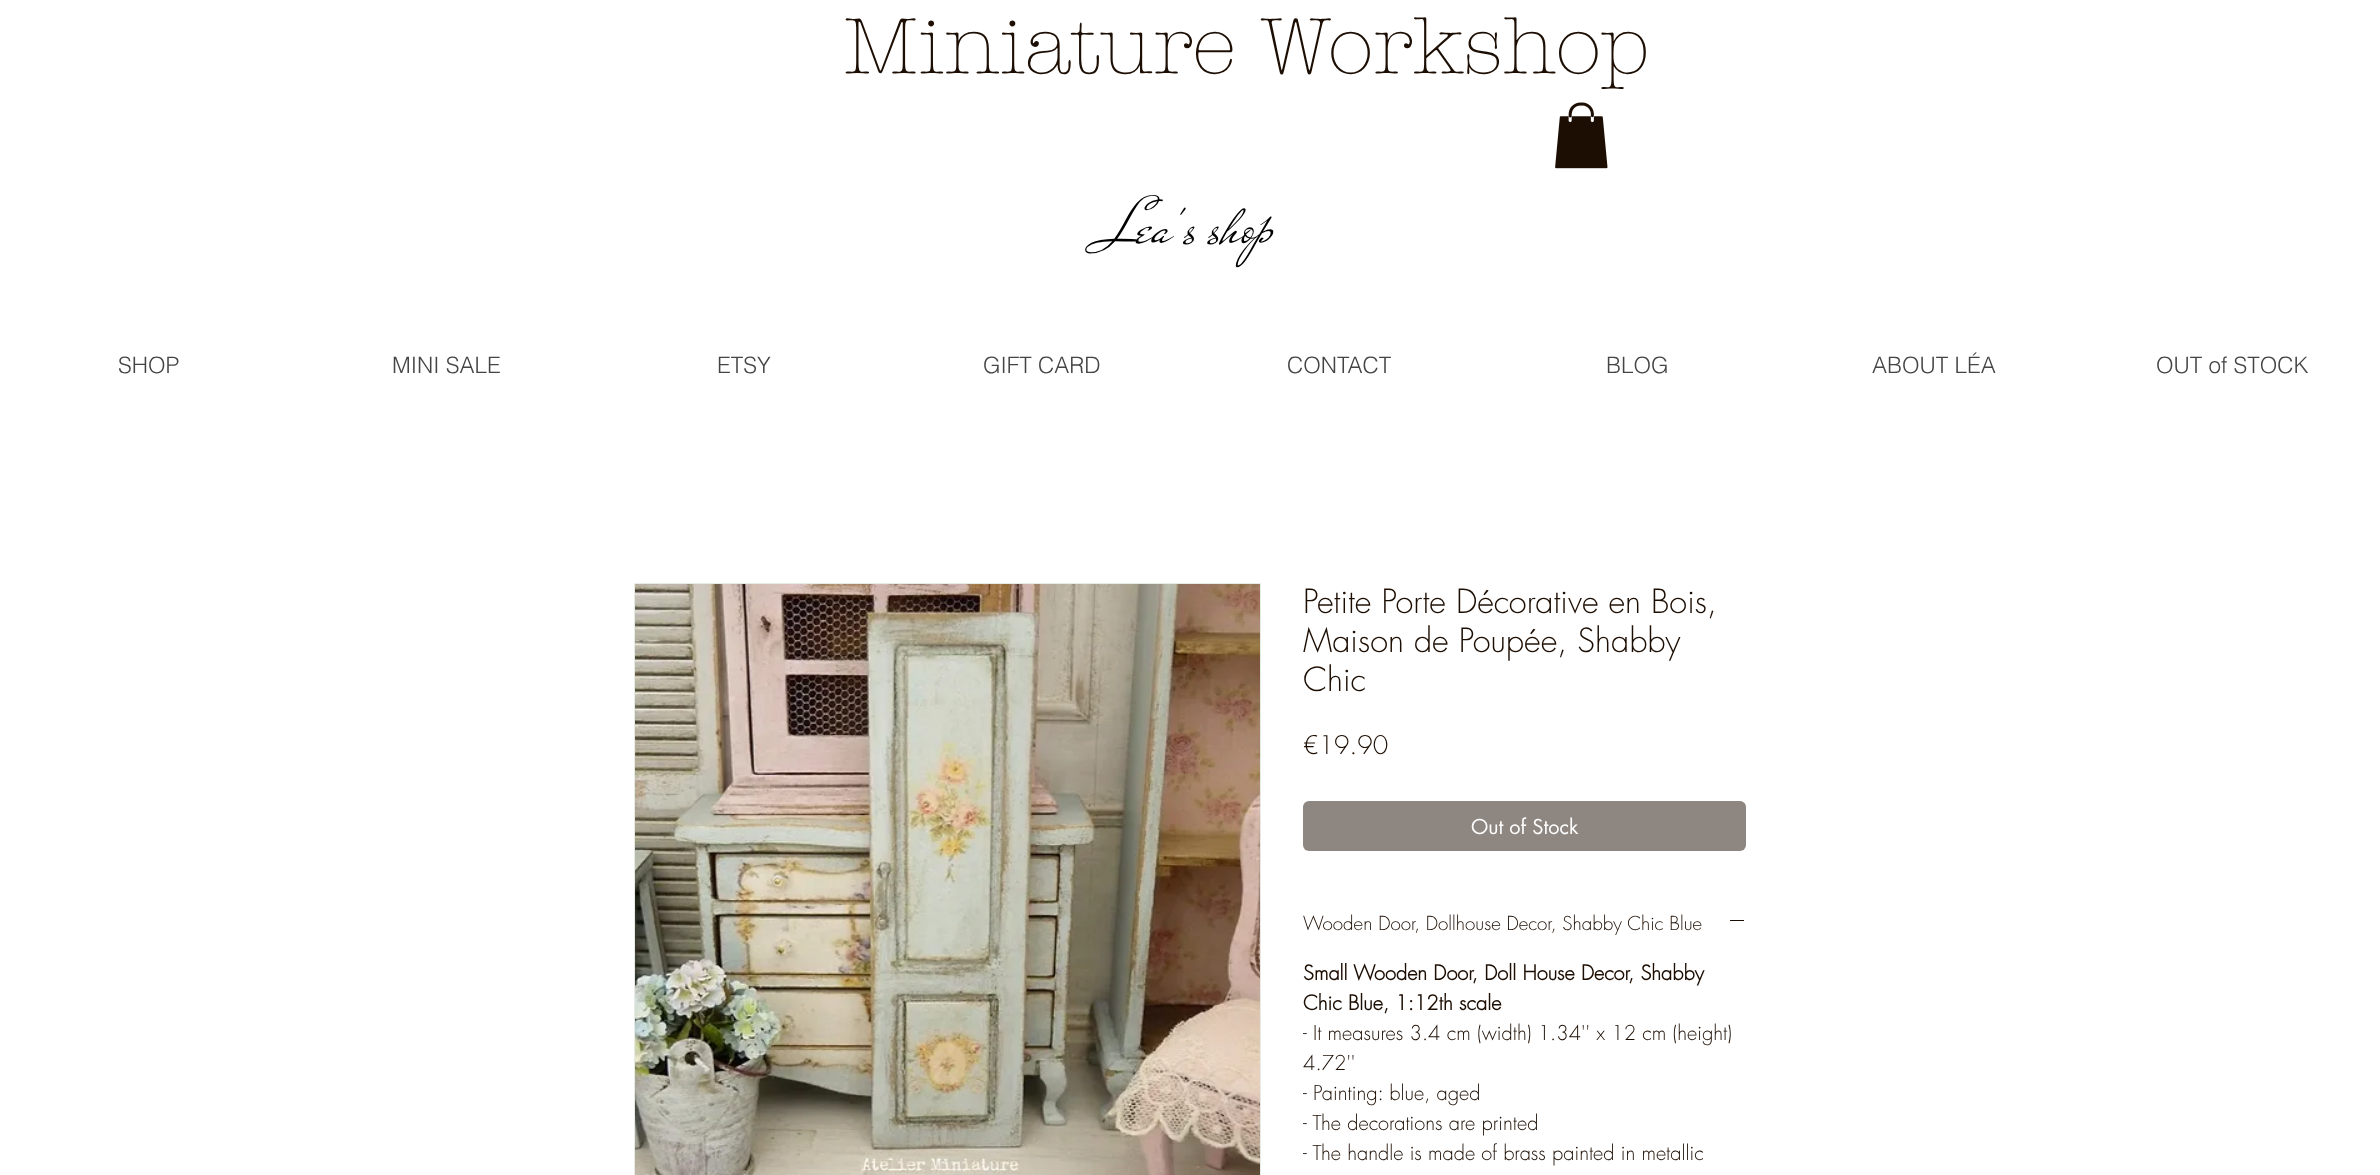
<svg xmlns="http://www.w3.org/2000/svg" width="2380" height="1175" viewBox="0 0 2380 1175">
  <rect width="100%" height="100%" fill="#fff"/>
  <image x="1555" y="102" width="53" height="67" href="img/1.png"/>
  <path d="M634.5 583.5h626v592H634.5z" fill="none" stroke="#e5ece3"/>
  <image x="635" y="584" width="625" height="591" href="img/2.png"/>
  <rect x="1303" y="801" width="443" height="50" rx="6" fill="#8e8681"/>
  <path d="M1730 920h14v1H1730z" fill="#1d0e03"/>
  <text x="843" y="73" font-family="'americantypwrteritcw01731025'" font-size="80" font-weight="300" fill="#1d0e03">Miniature Workshop</text>
  <text x="1105" y="242" font-family="Mr De Haviland" font-size="65" fill="#000">Lea's shop</text>
  <g font-family="helvetica" font-size="22.5" font-weight="300" fill="#444">
    <text x="118" y="373">SHOP</text>
    <text x="392" y="373">MINI SALE</text>
    <text x="717" y="373">ETSY</text>
    <text x="983" y="373">GIFT CARD</text>
    <text x="1287" y="373">CONTACT</text>
    <text x="1606" y="373">BLOG</text>
    <text x="1872" y="373">ABOUT LÉA</text>
    <text x="2156" y="373">OUT of STOCK</text>
  </g>
  <g font-family="futura" font-size="32.5" font-weight="300" fill="#1d0e03">
    <text x="1303" y="613">Petite Porte Décorative en Bois,</text>
    <text x="1303" y="652">Maison de Poupée, Shabby</text>
    <text x="1303" y="691">Chic</text>
  </g>
  <text x="1303" y="754" font-family="futura" font-size="25" font-weight="300" fill="#1d0e03">€19.90</text>
  <text x="1471" y="834" font-family="futura" font-size="20" fill="#fefefe">Out of Stock</text>
  <text x="1303" y="930" font-family="futura" font-size="18.75" font-weight="300" fill="#1d0e03">Wooden Door, Dollhouse Decor, Shabby Chic Blue</text>
  <g font-family="futura" font-size="20" font-weight="bold" fill="#1d0e03">
    <text x="1303" y="980">Small Wooden Door, Doll House Decor, Shabby</text>
    <text x="1303" y="1010">Chic Blue, 1:12th scale</text>
  </g>
  <g font-family="futura" font-size="20" font-weight="300" fill="#1d0e03">
    <text x="1303" y="1040">- It measures 3.4 cm (width) 1.34'' x 12 cm (height)</text>
    <text x="1303" y="1070">4.72''</text>
    <text x="1303" y="1100">- Painting: blue, aged</text>
    <text x="1303" y="1130">- The decorations are printed</text>
    <text x="1303" y="1160">- The handle is made of brass painted in metallic</text>
  </g>
</svg>
